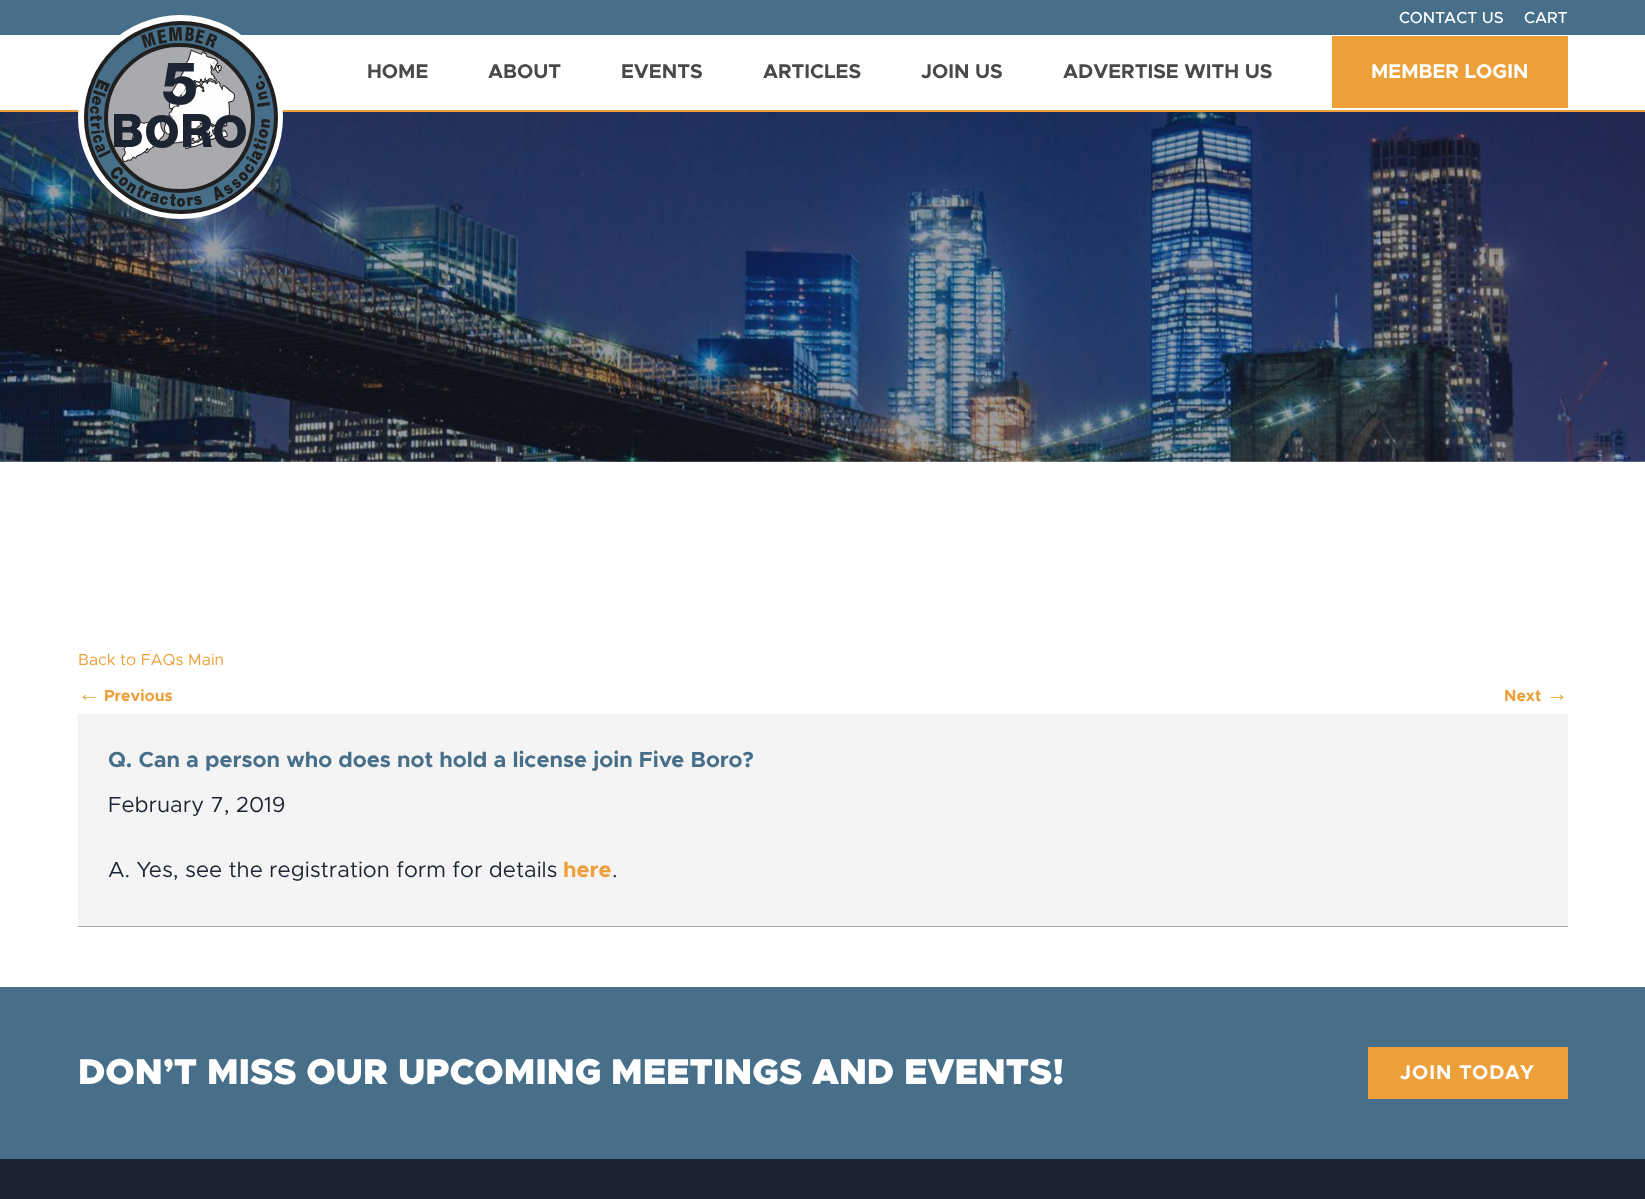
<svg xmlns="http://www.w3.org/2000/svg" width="1645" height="1199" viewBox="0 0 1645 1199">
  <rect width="100%" height="100%" fill="#fff"/>
  <path d="M0 110h1645v2H0z" fill="#eda039"/>
  <path d="M0 0h1645v35H0z" fill="#476f89"/>
  <image x="0" y="112" width="1645" height="350" href="img/2.png"/>
  <image x="78" y="15" width="205" height="204" href="img/1.png"/>
  <path d="M1332 36h236v72H1332z" fill="#eda039"/>
  <path d="M78 714h1490v212H78z" fill="#f4f4f4"/>
  <path d="M78 926h1490v1H78z" fill="#a8aaad"/>
  <path d="M0 987h1645v172H0z" fill="#476f89"/>
  <path d="M1368 1047h200v52H1368z" fill="#eda039"/>
  <path d="M0 1159h1645v40H0z" fill="#1c2432"/>
  <g font-family="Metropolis" font-size="16" font-weight="500" fill="#fff">
    <text x="1399" y="23">CONTACT US</text>
    <text x="1524" y="23">CART</text>
  </g>
  <g font-family="Metropolis" font-size="20" font-weight="bold" fill="#494949">
    <text x="367" y="78">HOME</text>
    <text x="488" y="78">ABOUT</text>
    <text x="621" y="78">EVENTS</text>
    <text x="763" y="78">ARTICLES</text>
    <text x="921" y="78">JOIN US</text>
    <text x="1063" y="78">ADVERTISE WITH US</text>
  </g>
  <text x="1371" y="78" font-family="Metropolis" font-size="20" font-weight="bold" fill="#fff">MEMBER LOGIN</text>
  <text x="78" y="665" font-family="Metropolis" font-size="16" fill="#eda039">Back to FAQs Main</text>
  <text x="78" y="701" font-family="Liberation Serif" font-size="22" fill="#eda039">←</text>
  <g font-family="Metropolis" font-size="16" font-weight="bold" fill="#eda039">
    <text x="104" y="701">Previous</text>
    <text x="1504" y="701">Next</text>
  </g>
  <text x="1546" y="701" font-family="Liberation Serif" font-size="22" fill="#eda039">→</text>
  <text x="108" y="767" font-family="Metropolis" font-size="22" font-weight="bold" fill="#476f89">Q. Can a person who does not hold a license join Five Boro?</text>
  <g font-family="Metropolis" font-size="22" fill="#1c2432">
    <text x="108" y="812">February 7, 2019</text>
    <text x="108" y="877">A. Yes, see the registration form for details</text>
  </g>
  <text x="563" y="877" font-family="Metropolis" font-size="22" font-weight="bold" fill="#eda039">here</text>
  <text x="612" y="877" font-family="Metropolis" font-size="22" fill="#1c2432">.</text>
  <text x="78" y="1084" font-family="Metropolis" font-size="36" font-weight="900" fill="#fff">DON’T MISS OUR UPCOMING MEETINGS AND EVENTS!</text>
  <text x="1400" y="1079" font-family="Metropolis" font-size="20" font-weight="bold" letter-spacing="1" fill="#fff">JOIN TODAY</text>
</svg>
